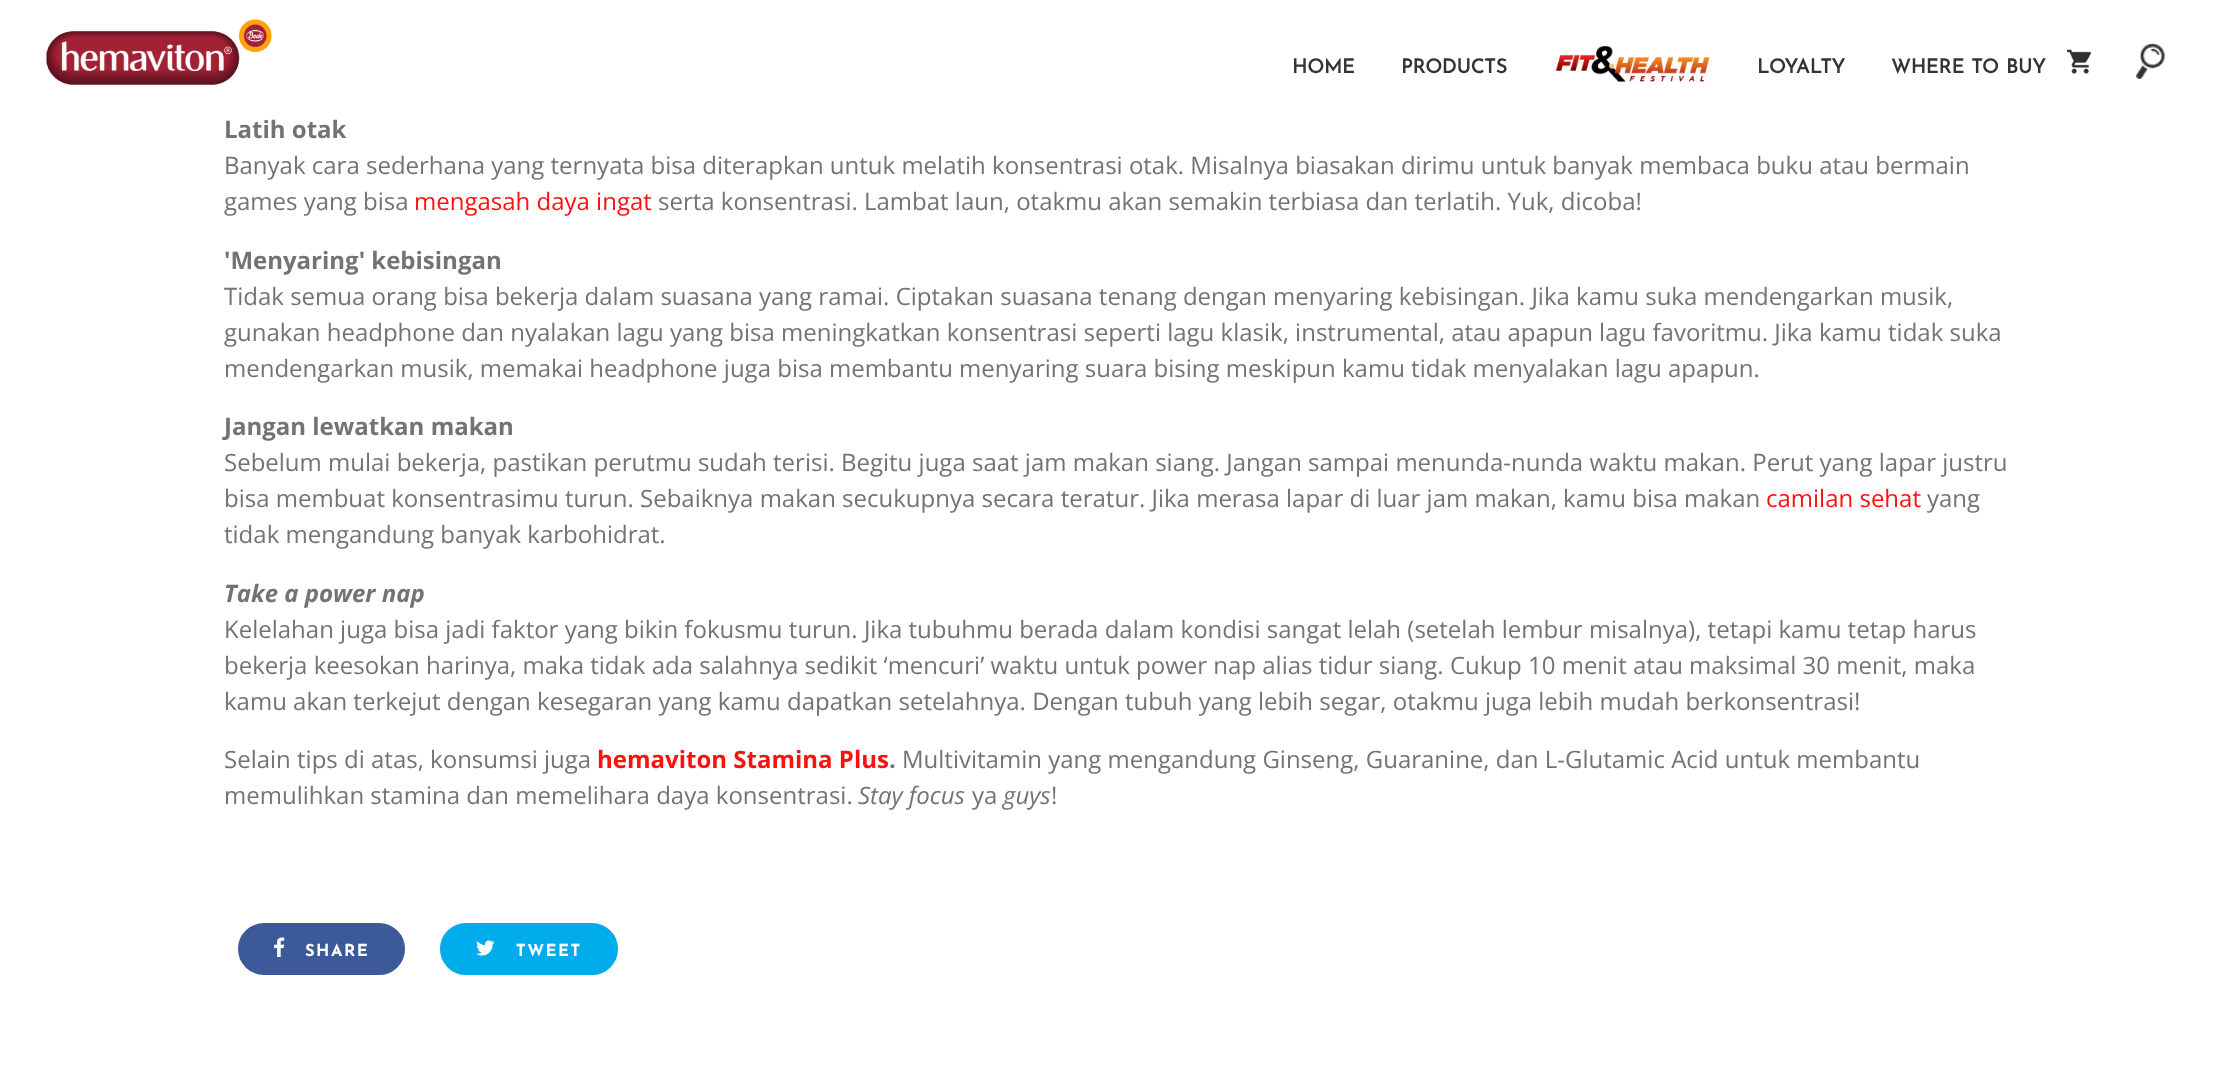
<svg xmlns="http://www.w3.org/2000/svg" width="2235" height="1086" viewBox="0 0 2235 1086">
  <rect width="100%" height="100%" fill="#fff"/>
  <image x="46" y="19" width="226" height="66" href="img/1.png"/>
  <image x="1555" y="45" width="155" height="37" href="img/2.png"/>
  <image x="2067" y="49" width="24" height="25" href="img/3.png"/>
  <image x="2136" y="43" width="29" height="36" href="img/4.png"/>
  <rect x="237" y="922" width="169" height="54" rx="27" fill="#3c5a9a" stroke="#fff" stroke-width="2"/>
  <image x="274" y="937" width="11" height="20" href="img/5.png"/>
  <rect x="439" y="922" width="180" height="54" rx="27" fill="#00acec" stroke="#fff" stroke-width="2"/>
  <image x="476" y="940" width="19" height="16" href="img/6.png"/>
  <g font-family="'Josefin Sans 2'" font-size="19.5" font-weight="bold" fill="#343434">
    <text x="1292" y="73">HOME</text>
    <text x="1401" y="73">PRODUCTS</text>
    <text x="1757" y="73">LOYALTY</text>
    <text x="1891" y="73" word-spacing="1">WHERE TO BUY</text>
  </g>
  <text x="224" y="138" font-family="Open Sans" font-size="24" font-weight="bold" fill="#737373">Latih otak</text>
  <g font-family="Open Sans" font-size="24" fill="#737373">
    <text x="224" y="174">Banyak cara sederhana yang ternyata bisa diterapkan untuk melatih konsentrasi otak. Misalnya biasakan dirimu untuk banyak membaca buku atau bermain</text>
    <text x="224" y="210">games yang bisa</text>
  </g>
  <text x="414" y="210" font-family="Open Sans" font-size="24" fill="#ff1010">mengasah daya ingat</text>
  <text x="658" y="210" font-family="Open Sans" font-size="24" fill="#737373">serta konsentrasi. Lambat laun, otakmu akan semakin terbiasa dan terlatih. Yuk, dicoba!</text>
  <text x="224" y="269" font-family="Open Sans" font-size="24" font-weight="bold" fill="#737373">'Menyaring' kebisingan</text>
  <g font-family="Open Sans" font-size="24" fill="#737373">
    <text x="224" y="305">Tidak semua orang bisa bekerja dalam suasana yang ramai. Ciptakan suasana tenang dengan menyaring kebisingan. Jika kamu suka mendengarkan musik,</text>
    <text x="224" y="341">gunakan headphone dan nyalakan lagu yang bisa meningkatkan konsentrasi seperti lagu klasik, instrumental, atau apapun lagu favoritmu. Jika kamu tidak suka</text>
    <text x="224" y="377">mendengarkan musik, memakai headphone juga bisa membantu menyaring suara bising meskipun kamu tidak menyalakan lagu apapun.</text>
  </g>
  <text x="224" y="435" font-family="Open Sans" font-size="24" font-weight="bold" fill="#737373">Jangan lewatkan makan</text>
  <g font-family="Open Sans" font-size="24" fill="#737373">
    <text x="224" y="471">Sebelum mulai bekerja, pastikan perutmu sudah terisi. Begitu juga saat jam makan siang. Jangan sampai menunda-nunda waktu makan. Perut yang lapar justru</text>
    <text x="224" y="507">bisa membuat konsentrasimu turun. Sebaiknya makan secukupnya secara teratur. Jika merasa lapar di luar jam makan, kamu bisa makan</text>
  </g>
  <text x="1766" y="507" font-family="Open Sans" font-size="24" fill="#ff1010">camilan sehat</text>
  <g font-family="Open Sans" font-size="24" fill="#737373">
    <text x="1927" y="507">yang</text>
    <text x="224" y="543">tidak mengandung banyak karbohidrat.</text>
  </g>
  <text x="224" y="602" font-family="Open Sans" font-size="24" font-weight="bold" font-style="italic" fill="#737373">Take a power nap</text>
  <g font-family="Open Sans" font-size="24" fill="#737373">
    <text x="224" y="638">Kelelahan juga bisa jadi faktor yang bikin fokusmu turun. Jika tubuhmu berada dalam kondisi sangat lelah (setelah lembur misalnya), tetapi kamu tetap harus</text>
    <text x="224" y="674">bekerja keesokan harinya, maka tidak ada salahnya sedikit ‘mencuri’ waktu untuk power nap alias tidur siang. Cukup 10 menit atau maksimal 30 menit, maka</text>
    <text x="224" y="710">kamu akan terkejut dengan kesegaran yang kamu dapatkan setelahnya. Dengan tubuh yang lebih segar, otakmu juga lebih mudah berkonsentrasi!</text>
    <text x="224" y="768">Selain tips di atas, konsumsi juga</text>
  </g>
  <text x="597" y="768" font-family="Open Sans" font-size="24" font-weight="bold" fill="#ff1010">hemaviton Stamina Plus</text>
  <text x="889" y="768" font-family="Open Sans" font-size="24" font-weight="bold" fill="#737373">.</text>
  <g font-family="Open Sans" font-size="24" fill="#737373">
    <text x="902" y="768">Multivitamin yang mengandung Ginseng, Guaranine, dan L-Glutamic Acid untuk membantu</text>
    <text x="224" y="804">memulihkan stamina dan memelihara daya konsentrasi.</text>
  </g>
  <text x="858" y="804" font-family="Open Sans" font-size="24" font-style="italic" fill="#737373">Stay focus</text>
  <text x="972" y="804" font-family="Open Sans" font-size="24" fill="#737373">ya</text>
  <text x="1003" y="804" font-family="Open Sans" font-size="24" font-style="italic" fill="#737373">guys</text>
  <text x="1051" y="804" font-family="Open Sans" font-size="24" fill="#737373">!</text>
  <g font-family="Josefin Sans" font-size="16.5" font-weight="bold" letter-spacing="1.5" fill="#fff">
    <text x="305" y="956">SHARE</text>
    <text x="516" y="956">TWEET</text>
  </g>
</svg>
